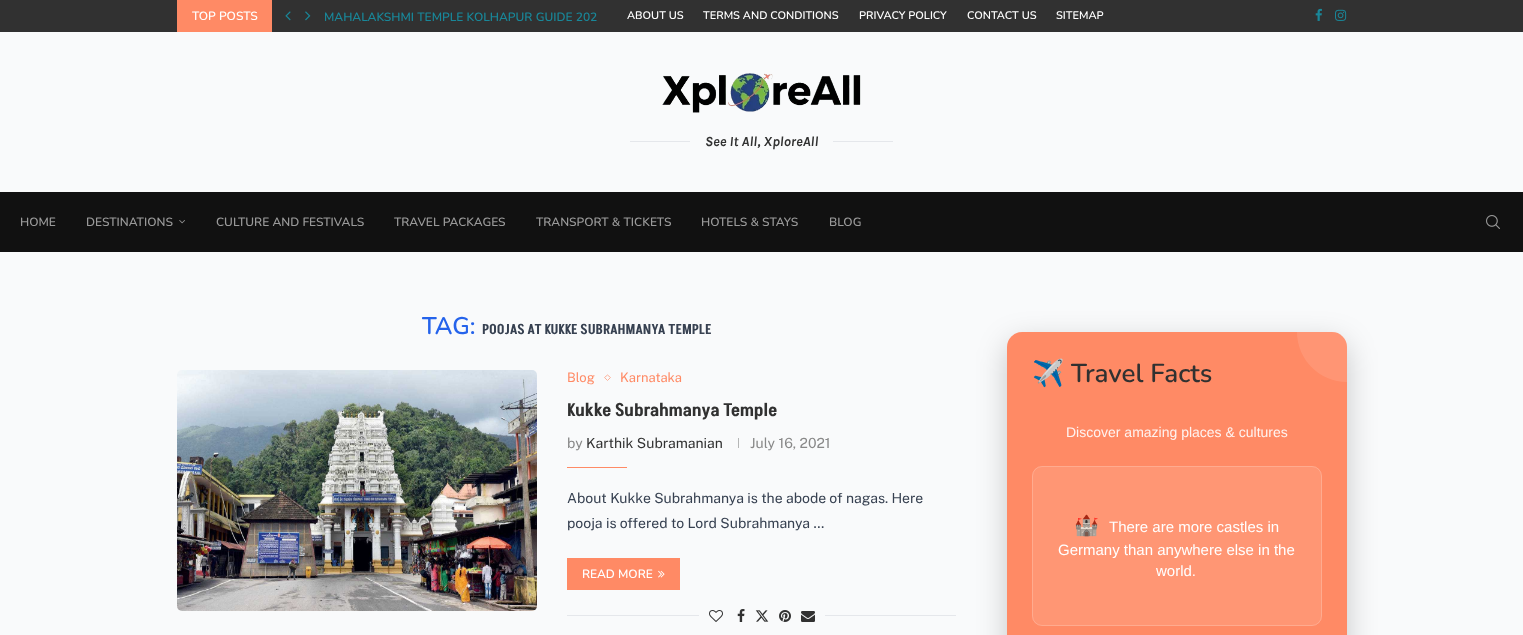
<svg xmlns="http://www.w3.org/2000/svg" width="1523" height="635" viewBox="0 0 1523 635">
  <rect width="100%" height="100%" fill="#f9fafb"/>
  <path d="M0 0h1523v32H0z" fill="#313131"/>
  <path d="M177 0h95v32H177z" fill="#ff8a65"/>
  <image x="285" y="11" width="6" height="10" href="img/1.png"/>
  <image x="305" y="11" width="6" height="10" href="img/2.png"/>
  <image x="1315" y="8" width="7" height="13" href="img/3.png"/>
  <image x="1335" y="9" width="12" height="12" href="img/4.png"/>
  <image x="662" y="73" width="199" height="40" href="img/5.png"/>
  <path d="M630 141h60v1H630z" fill="#e5e7eb"/>
  <path d="M833 141h60v1H833z" fill="#e5e7eb"/>
  <path d="M0 192h1523v60H0z" fill="#111"/>
  <image x="179" y="220" width="6" height="4" href="img/6.png"/>
  <image x="1486" y="215" width="14" height="14" href="img/7.png"/>
  <image x="177" y="370" width="360" height="241" href="img/8.png"/>
  <path d="M607.5 375L610.5 377.5L607.5 380.5L604.5 377.5Z" fill="none" stroke="#fdb19a"/>
  <path d="M738 438h1v10H738z" fill="#b5b6b6"/>
  <path d="M567 467h60v1H567z" fill="#ff8a65"/>
  <path d="M567 558h113v32H567z" fill="#ff8a65"/>
  <image x="658" y="570" width="7" height="8" href="img/9.png"/>
  <path d="M567 615h389v1H567z" fill="#e5e7eb"/>
  <path d="M699 615h126v1H699z" fill="#f9fafb"/>
  <image x="709" y="610" width="14" height="12" href="img/10.png"/>
  <image x="737" y="609" width="8" height="13" href="img/11.png"/>
  <image x="755" y="610" width="14" height="12" href="img/12.png"/>
  <image x="779" y="610" width="12" height="12" href="img/13.png"/>
  <image x="801" y="611" width="14" height="11" href="img/14.png"/>
  <rect x="1007" y="342" width="340" height="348" rx="15" fill="#00000033" filter="blur(15px)"/>
  <rect x="1007" y="332" width="340" height="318" rx="15" fill="#ff8a65"/>
  <rect x="1032" y="466" width="290" height="160" rx="10" fill="#ff9674"/>
  <rect x="1032.5" y="466.5" width="289" height="159" rx="9.5" fill="none" stroke="#ffffff33"/>
  <path d="M1297 332H1332C1340.5 332 1347 338.5 1347 347V382C1319.5 382 1297 359.5 1297 332Z" fill="#ffffff1a"/>
  <text x="192" y="20" font-family="Nunito" font-size="12" font-weight="600" fill="#fff">TOP POSTS</text>
  <text x="324" y="21" font-family="Nunito" font-size="12" font-weight="600" fill="#198799">MAHALAKSHMI TEMPLE KOLHAPUR GUIDE 202</text>
  <g font-family="Nunito" font-size="11" font-weight="600" fill="#fff">
    <text x="627" y="19">ABOUT US</text>
    <text x="703" y="19">TERMS AND CONDITIONS</text>
    <text x="859" y="19">PRIVACY POLICY</text>
    <text x="967" y="19">CONTACT US</text>
    <text x="1056" y="19">SITEMAP</text>
  </g>
  <text x="705" y="146" font-family="Karla" font-size="14" font-weight="bold" font-style="italic" fill="#313131">See It All, XploreAll</text>
  <g font-family="Nunito" font-size="12" font-weight="600" fill="#999">
    <text x="20" y="226">HOME</text>
    <text x="86" y="226">DESTINATIONS</text>
    <text x="216" y="226">CULTURE AND FESTIVALS</text>
    <text x="394" y="226">TRAVEL PACKAGES</text>
    <text x="536" y="226">TRANSPORT &amp; TICKETS</text>
    <text x="701" y="226">HOTELS &amp; STAYS</text>
    <text x="829" y="226">BLOG</text>
  </g>
  <text x="422" y="334" font-family="Nunito" font-size="24" font-weight="600" fill="#2563eb">TAG:</text>
  <text x="482" y="334" font-family="Akshar" font-size="14" font-weight="600" fill="#374151">POOJAS AT KUKKE SUBRAHMANYA TEMPLE</text>
  <g font-family="Public Sans" font-size="13" fill="#ff8a65">
    <text x="567" y="382">Blog</text>
    <text x="620" y="382">Karnataka</text>
  </g>
  <text x="567" y="416" font-family="Akshar" font-size="18" font-weight="600" fill="#313131">Kukke Subrahmanya Temple</text>
  <text x="567" y="448" font-family="Public Sans" font-size="14" fill="#888">by</text>
  <text x="586" y="448" font-family="Public Sans" font-size="14" fill="#313131">Karthik Subramanian</text>
  <text x="750" y="448" font-family="Public Sans" font-size="14" fill="#888">July 16, 2021</text>
  <g font-family="Public Sans" font-size="14" fill="#374151">
    <text x="567" y="503">About Kukke Subrahmanya is the abode of nagas. Here</text>
    <text x="567" y="528">pooja is offered to Lord Subrahmanya …</text>
  </g>
  <text x="582" y="578" font-family="Nunito" font-size="12" font-weight="600" fill="#fff">READ MORE</text>
  <text x="1032" y="382" font-family="Noto Color Emoji" font-size="26" font-weight="bold" fill="#313131">✈️</text>
  <text x="1071" y="382" font-family="Nunito" font-size="26" font-weight="600" fill="#313131">Travel Facts</text>
  <text x="1066" y="437" font-family="Liberation Sans" font-size="14" fill="#fff3f0">Discover amazing places &amp; cultures</text>
  <text x="1074" y="532" font-family="Noto Color Emoji" font-size="20" fill="#fff">🏰</text>
  <g font-family="Liberation Sans" font-size="15" fill="#fff">
    <text x="1109" y="532">There are more castles in</text>
    <text x="1058" y="555">Germany than anywhere else in the</text>
    <text x="1156" y="576">world.</text>
  </g>
</svg>
